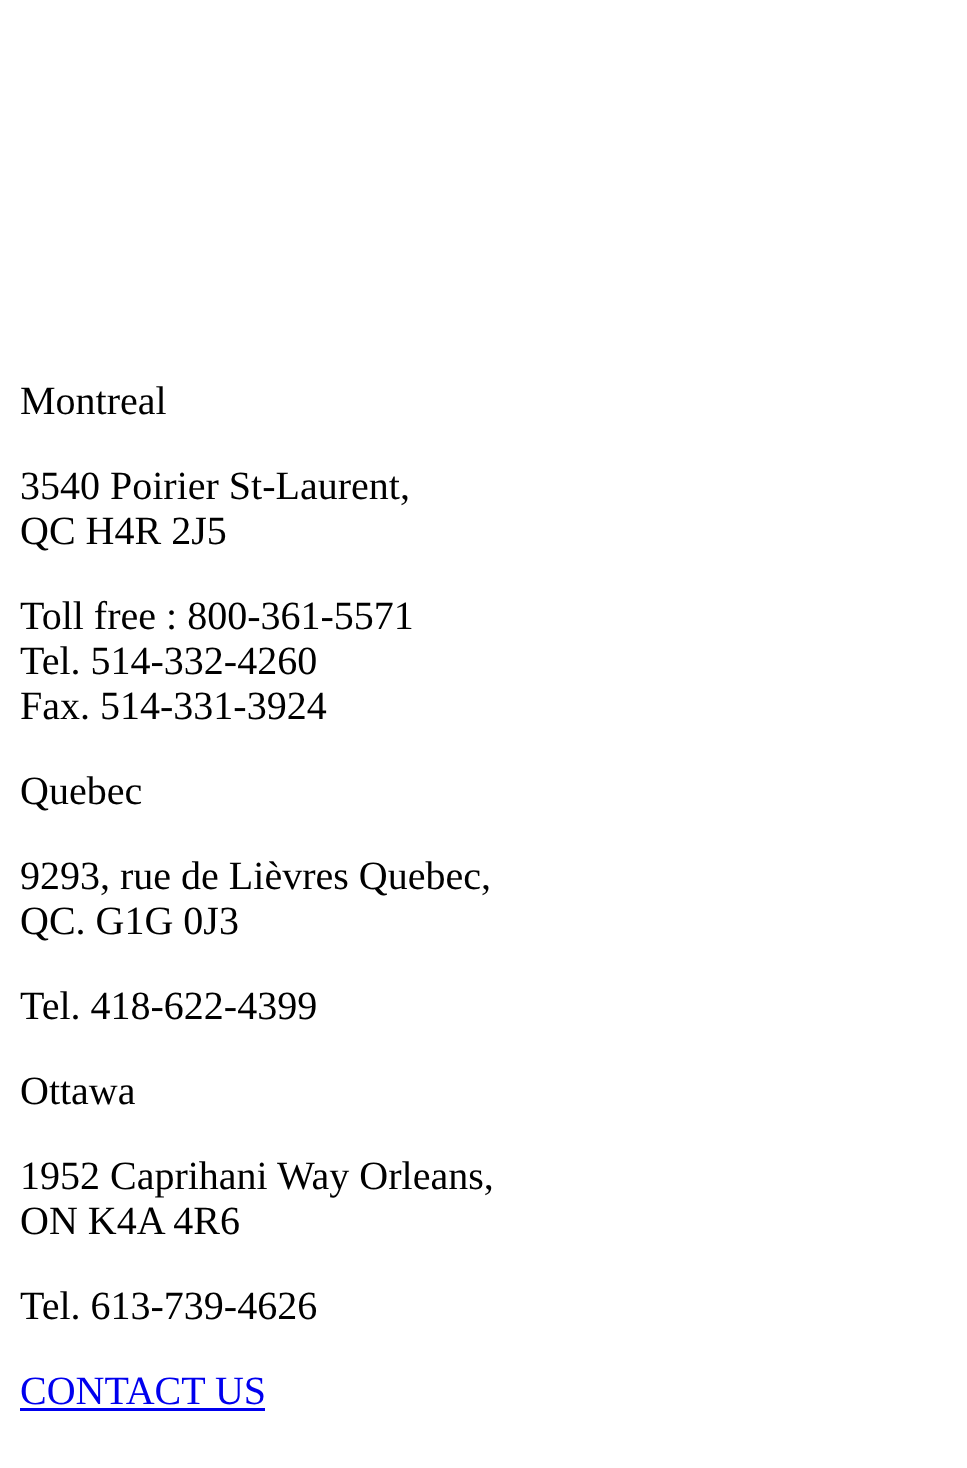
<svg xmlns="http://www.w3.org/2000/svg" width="967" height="1468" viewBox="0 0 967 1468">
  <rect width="100%" height="100%" fill="#fff"/>
  <path d="M20 1408h245v3H20z" fill="#00e"/>
  <g font-family="Liberation Serif" font-size="40" fill="#000">
    <text x="20" y="414">Montreal</text>
    <text x="20" y="499">3540 Poirier St-Laurent,</text>
    <text x="20" y="544">QC H4R 2J5</text>
    <text x="20" y="629">Toll free : 800-361-5571</text>
    <text x="20" y="674">Tel. 514-332-4260</text>
    <text x="20" y="719">Fax. 514-331-3924</text>
    <text x="20" y="804">Quebec</text>
    <text x="20" y="889">9293, rue de Lièvres Quebec,</text>
    <text x="20" y="934">QC. G1G 0J3</text>
    <text x="20" y="1019">Tel. 418-622-4399</text>
    <text x="20" y="1104">Ottawa</text>
    <text x="20" y="1189">1952 Caprihani Way Orleans,</text>
    <text x="20" y="1234">ON K4A 4R6</text>
    <text x="20" y="1319">Tel. 613-739-4626</text>
  </g>
  <text x="20" y="1404" font-family="Liberation Serif" font-size="40" fill="#00e">CONTACT US</text>
</svg>
